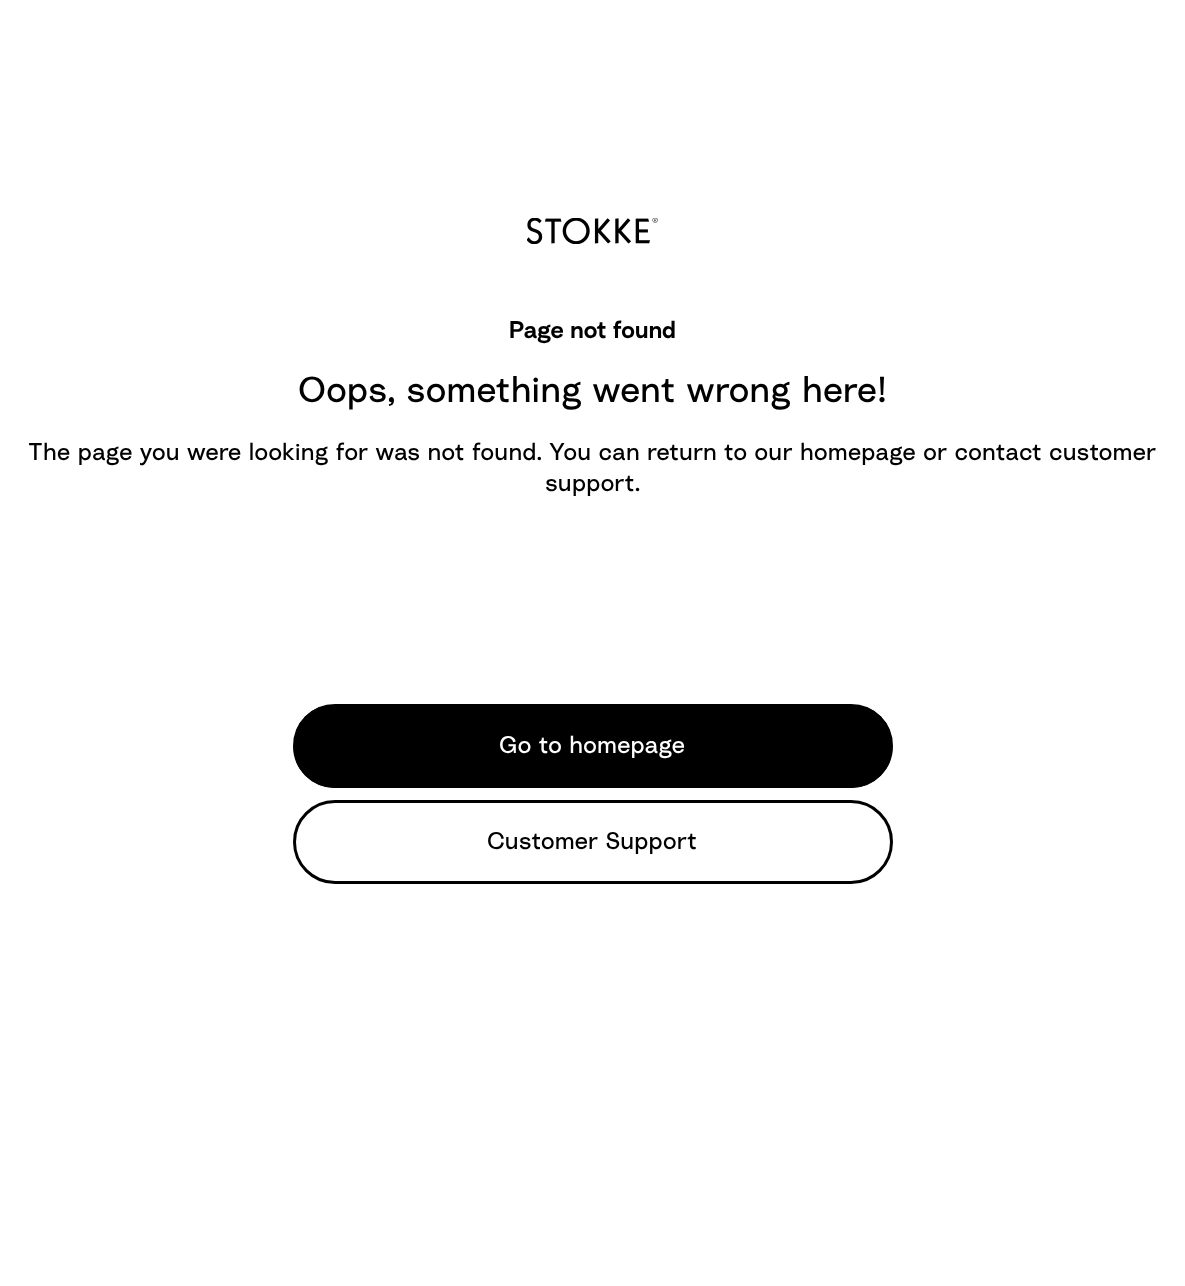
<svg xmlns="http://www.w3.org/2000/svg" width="1185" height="1286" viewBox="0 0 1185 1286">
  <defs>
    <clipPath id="clip1"><rect x="293" y="704" width="600" height="84" rx="42"/></clipPath>
  </defs>
  <rect width="100%" height="100%" fill="#fff"/>
  <image x="527" y="218" width="131" height="26" href="img/1.png"/>
  <g clip-path="url(#clip1)">
    <path d="M296 707h594v81H296z" fill="#000"/>
  </g>
  <rect x="294.5" y="705.5" width="597" height="81" rx="40.5" fill="none" stroke="#000" stroke-width="3"/>
  <rect x="294.5" y="801.5" width="597" height="81" rx="40.5" fill="none" stroke="#000" stroke-width="3"/>
  <text x="509" y="338" font-family="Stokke" font-size="24" font-weight="600" fill="#000">Page not found</text>
  <text x="298" y="402" font-family="Stokke" font-size="36" fill="#000">Oops, something went wrong here!</text>
  <g font-family="Stokke" font-size="24" fill="#000">
    <text x="28" y="460">The page you were looking for was not found. You can return to our homepage or contact customer</text>
    <text x="545" y="491">support.</text>
  </g>
  <text x="499" y="753" font-family="Stokke" font-size="24" fill="#fff">Go to homepage</text>
  <text x="487" y="849" font-family="Stokke" font-size="24" fill="#000">Customer Support</text>
</svg>
